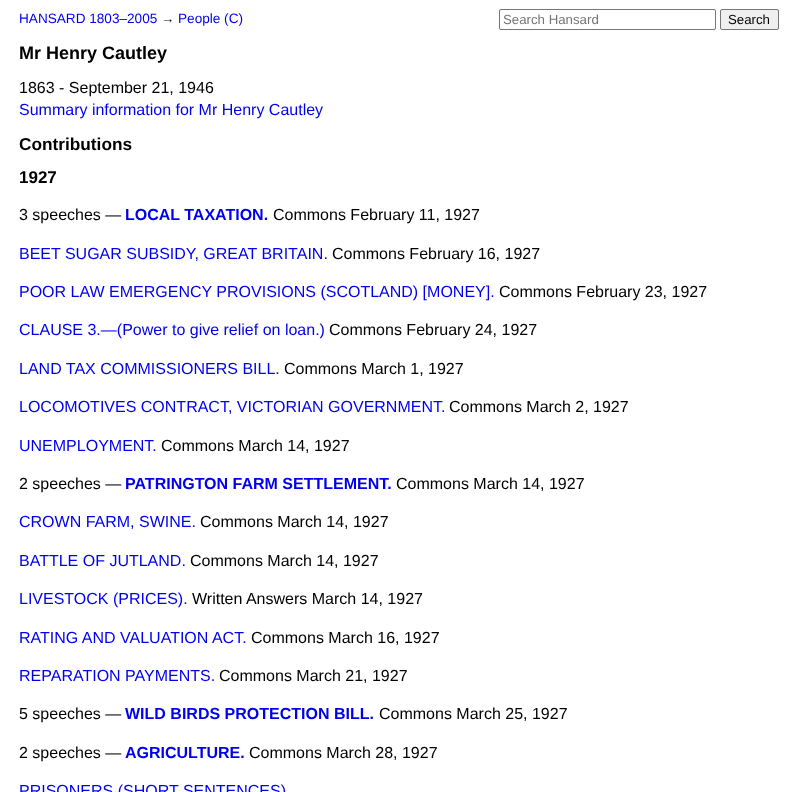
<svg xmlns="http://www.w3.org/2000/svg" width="797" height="792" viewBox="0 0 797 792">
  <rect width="100%" height="100%" fill="#fff"/>
  <rect x="499.5" y="9.5" width="216" height="20" rx="1.5" fill="none" stroke="#767676"/>
  <rect x="720.5" y="9.5" width="58" height="20" rx="1.5" fill="#efefef" stroke="#767676"/>
  <text x="19" y="23" font-family="Liberation Sans" font-size="13.6" fill="#00e">HANSARD 1803–2005</text>
  <text x="161" y="23" font-family="Liberation Sans" font-size="13.6" fill="#000">→</text>
  <text x="178" y="23" font-family="Liberation Sans" font-size="13.6" fill="#00e">People (C)</text>
  <text x="503" y="24" font-family="Liberation Sans" font-size="13.25" fill="#757575">Search Hansard</text>
  <text x="728" y="24" font-family="Liberation Sans" font-size="13.25" fill="#000">Search</text>
  <text x="19" y="59" font-family="Liberation Sans" font-size="18" font-weight="bold" fill="#000">Mr Henry Cautley</text>
  <text x="19" y="93" font-family="Liberation Sans" font-size="16" fill="#000">1863 - September 21, 1946</text>
  <text x="19" y="115" font-family="Liberation Sans" font-size="16" fill="#00e">Summary information for Mr Henry Cautley</text>
  <text x="19" y="150" font-family="Liberation Sans" font-size="17.25" font-weight="bold" fill="#000">Contributions</text>
  <text x="19" y="183" font-family="Liberation Sans" font-size="17" font-weight="bold" fill="#000">1927</text>
  <text x="19" y="220" font-family="Liberation Sans" font-size="16" fill="#000">3 speeches —</text>
  <text x="125" y="220" font-family="Liberation Sans" font-size="16" font-weight="bold" fill="#00e">LOCAL TAXATION.</text>
  <text x="273" y="220" font-family="Liberation Sans" font-size="16" fill="#000">Commons February 11, 1927</text>
  <text x="19" y="259" font-family="Liberation Sans" font-size="16" fill="#00e">BEET SUGAR SUBSIDY, GREAT BRITAIN.</text>
  <text x="332" y="259" font-family="Liberation Sans" font-size="16" fill="#000">Commons February 16, 1927</text>
  <text x="19" y="297" font-family="Liberation Sans" font-size="16" fill="#00e">POOR LAW EMERGENCY PROVISIONS (SCOTLAND) [MONEY].</text>
  <text x="499" y="297" font-family="Liberation Sans" font-size="16" fill="#000">Commons February 23, 1927</text>
  <text x="19" y="335" font-family="Liberation Sans" font-size="16" fill="#00e">CLAUSE 3.—(Power to give relief on loan.)</text>
  <text x="329" y="335" font-family="Liberation Sans" font-size="16" fill="#000">Commons February 24, 1927</text>
  <text x="19" y="374" font-family="Liberation Sans" font-size="16" fill="#00e">LAND TAX COMMISSIONERS BILL.</text>
  <text x="284" y="374" font-family="Liberation Sans" font-size="16" fill="#000">Commons March 1, 1927</text>
  <text x="19" y="412" font-family="Liberation Sans" font-size="16" fill="#00e">LOCOMOTIVES CONTRACT, VICTORIAN GOVERNMENT.</text>
  <text x="449" y="412" font-family="Liberation Sans" font-size="16" fill="#000">Commons March 2, 1927</text>
  <text x="19" y="451" font-family="Liberation Sans" font-size="16" fill="#00e">UNEMPLOYMENT.</text>
  <g font-family="Liberation Sans" font-size="16" fill="#000">
    <text x="161" y="451">Commons March 14, 1927</text>
    <text x="19" y="489">2 speeches —</text>
  </g>
  <text x="125" y="489" font-family="Liberation Sans" font-size="16" font-weight="bold" fill="#00e">PATRINGTON FARM SETTLEMENT.</text>
  <text x="396" y="489" font-family="Liberation Sans" font-size="16" fill="#000">Commons March 14, 1927</text>
  <text x="19" y="527" font-family="Liberation Sans" font-size="16" fill="#00e">CROWN FARM, SWINE.</text>
  <text x="200" y="527" font-family="Liberation Sans" font-size="16" fill="#000">Commons March 14, 1927</text>
  <text x="19" y="566" font-family="Liberation Sans" font-size="16" fill="#00e">BATTLE OF JUTLAND.</text>
  <text x="190" y="566" font-family="Liberation Sans" font-size="16" fill="#000">Commons March 14, 1927</text>
  <text x="19" y="604" font-family="Liberation Sans" font-size="16" fill="#00e">LIVESTOCK (PRICES).</text>
  <text x="192" y="604" font-family="Liberation Sans" font-size="16" fill="#000">Written Answers March 14, 1927</text>
  <text x="19" y="643" font-family="Liberation Sans" font-size="16" fill="#00e">RATING AND VALUATION ACT.</text>
  <text x="251" y="643" font-family="Liberation Sans" font-size="16" fill="#000">Commons March 16, 1927</text>
  <text x="19" y="681" font-family="Liberation Sans" font-size="16" fill="#00e">REPARATION PAYMENTS.</text>
  <g font-family="Liberation Sans" font-size="16" fill="#000">
    <text x="219" y="681">Commons March 21, 1927</text>
    <text x="19" y="719">5 speeches —</text>
  </g>
  <text x="125" y="719" font-family="Liberation Sans" font-size="16" font-weight="bold" fill="#00e">WILD BIRDS PROTECTION BILL.</text>
  <g font-family="Liberation Sans" font-size="16" fill="#000">
    <text x="379" y="719">Commons March 25, 1927</text>
    <text x="19" y="758">2 speeches —</text>
  </g>
  <text x="125" y="758" font-family="Liberation Sans" font-size="16" font-weight="bold" fill="#00e">AGRICULTURE.</text>
  <text x="249" y="758" font-family="Liberation Sans" font-size="16" fill="#000">Commons March 28, 1927</text>
  <text x="19" y="796" font-family="Liberation Sans" font-size="16" fill="#00e">PRISONERS (SHORT SENTENCES)</text>
</svg>
